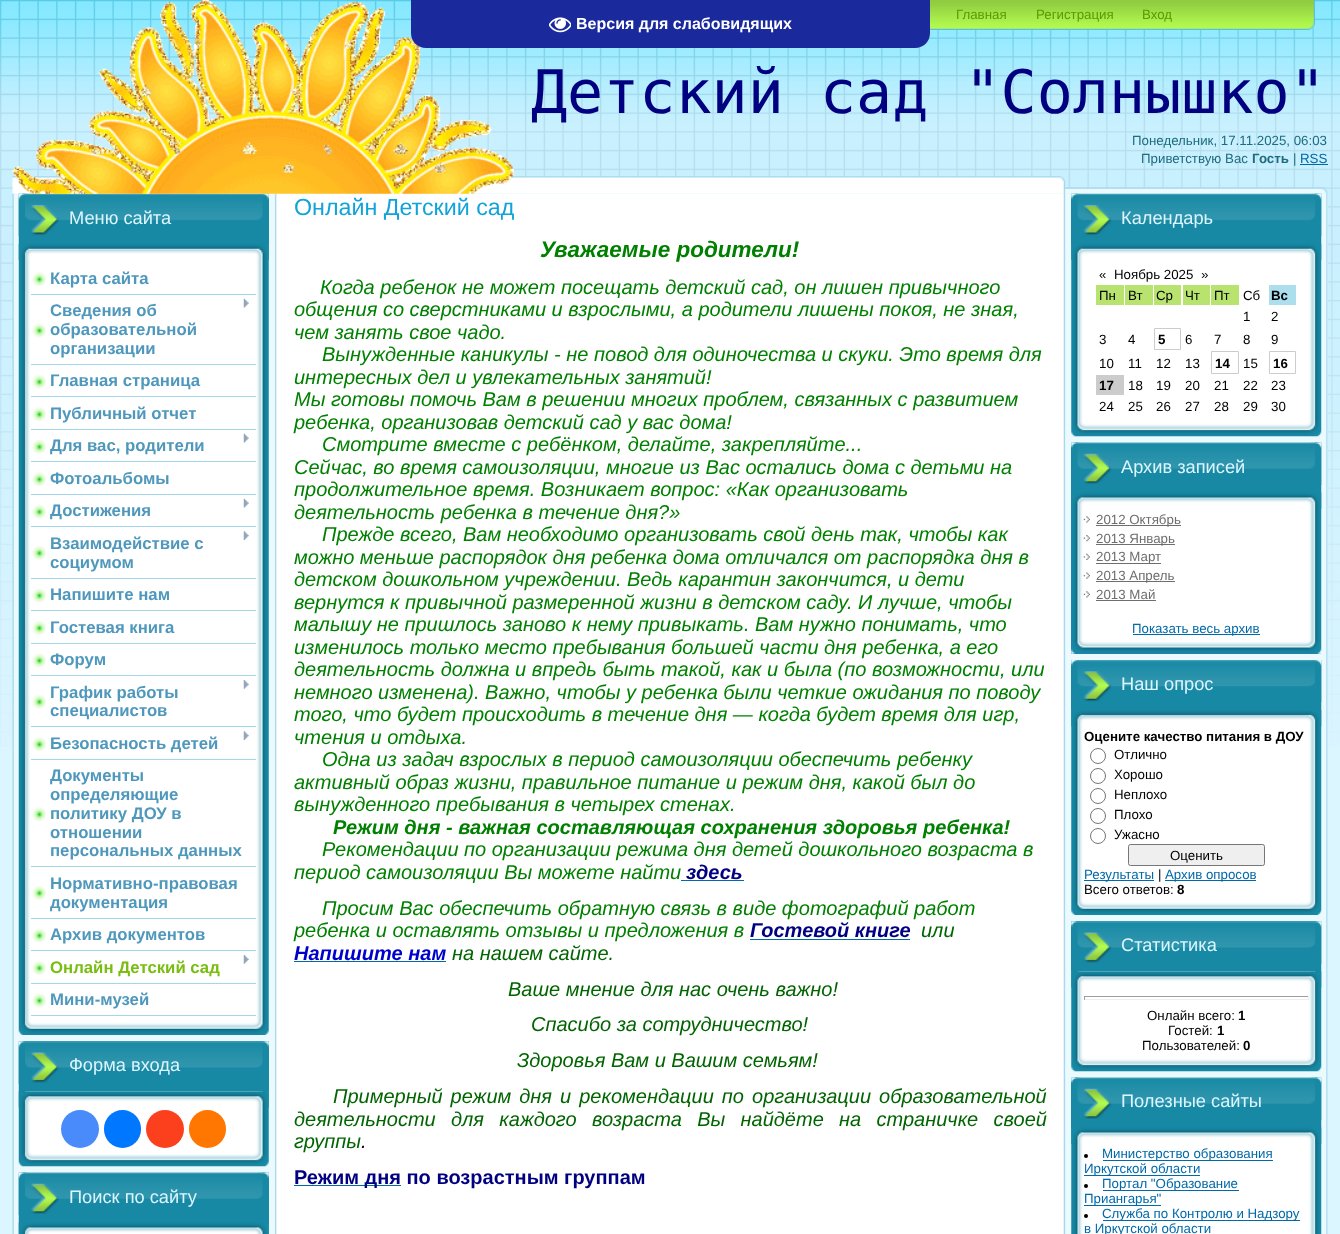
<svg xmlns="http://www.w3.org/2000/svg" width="1340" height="1234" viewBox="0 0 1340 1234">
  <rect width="100%" height="100%" fill="#dcf6ff"/>
  <image x="0" y="0" width="1340" height="747" href="img/1.png"/>
  <image x="12" y="176" width="1316" height="18" href="img/2.png"/>
  <image x="12" y="193" width="270" height="1041" href="img/5.png"/>
  <image x="18" y="193" width="251" height="842" href="img/6.png"/>
  <path d="M20 194h249v50H20z" fill="#1789a4"/>
  <image x="18" y="193" width="251" height="44" href="img/7.png"/>
  <image x="12" y="0" width="502" height="194" href="img/3.png"/>
  <image x="930" y="0" width="385" height="30" href="img/4.png"/>
  <path d="M1300 164h28v1H1300z" fill="#0069a9"/>
  <path d="M1327 194h1v1040H1327z" fill="#ebfaff"/>
  <image x="18" y="243" width="251" height="17" href="img/8.png"/>
  <image x="31" y="271" width="16" height="16" href="img/9.png"/>
  <path d="M31 294h225v1H31z" fill="#a2d7ec"/>
  <image x="31" y="323" width="16" height="15" href="img/10.png"/>
  <path d="M31 364h225v1H31z" fill="#a2d7ec"/>
  <image x="243" y="298" width="6" height="10" href="img/11.png"/>
  <image x="31" y="374" width="16" height="15" href="img/12.png"/>
  <path d="M31 396h225v1H31z" fill="#a2d7ec"/>
  <image x="31" y="406" width="16" height="16" href="img/9.png"/>
  <path d="M31 429h225v1H31z" fill="#a2d7ec"/>
  <image x="31" y="439" width="16" height="15" href="img/12.png"/>
  <path d="M31 461h225v1H31z" fill="#a2d7ec"/>
  <image x="243" y="433" width="6" height="10" href="img/11.png"/>
  <image x="31" y="471" width="16" height="16" href="img/9.png"/>
  <path d="M31 494h225v1H31z" fill="#a2d7ec"/>
  <image x="31" y="504" width="16" height="15" href="img/12.png"/>
  <path d="M31 526h225v1H31z" fill="#a2d7ec"/>
  <image x="243" y="498" width="6" height="10" href="img/11.png"/>
  <image x="31" y="545" width="16" height="15" href="img/13.png"/>
  <path d="M31 578h225v1H31z" fill="#a2d7ec"/>
  <image x="243" y="531" width="6" height="9" href="img/14.png"/>
  <image x="31" y="588" width="16" height="15" href="img/15.png"/>
  <path d="M31 610h225v1H31z" fill="#a2d7ec"/>
  <image x="31" y="620" width="16" height="15" href="img/13.png"/>
  <path d="M31 643h225v1H31z" fill="#a2d7ec"/>
  <image x="31" y="653" width="16" height="15" href="img/10.png"/>
  <path d="M31 675h225v1H31z" fill="#a2d7ec"/>
  <image x="31" y="694" width="16" height="15" href="img/12.png"/>
  <path d="M31 726h225v1H31z" fill="#a2d7ec"/>
  <image x="243" y="680" width="6" height="9" href="img/16.png"/>
  <image x="31" y="736" width="16" height="16" href="img/9.png"/>
  <path d="M31 759h225v1H31z" fill="#a2d7ec"/>
  <image x="243" y="731" width="6" height="9" href="img/14.png"/>
  <image x="31" y="806" width="16" height="16" href="img/9.png"/>
  <path d="M31 866h225v1H31z" fill="#a2d7ec"/>
  <image x="31" y="885" width="16" height="15" href="img/13.png"/>
  <path d="M31 918h225v1H31z" fill="#a2d7ec"/>
  <image x="31" y="928" width="16" height="15" href="img/10.png"/>
  <path d="M31 950h225v1H31z" fill="#a2d7ec"/>
  <image x="31" y="960" width="16" height="15" href="img/13.png"/>
  <path d="M31 983h225v1H31z" fill="#a2d7ec"/>
  <image x="243" y="955" width="6" height="9" href="img/16.png"/>
  <image x="31" y="993" width="16" height="15" href="img/10.png"/>
  <path d="M31 1015h225v1H31z" fill="#a2d7ec"/>
  <image x="18" y="1041" width="251" height="126" href="img/17.png"/>
  <path d="M19 1041h250v50H19z" fill="#1789a4"/>
  <image x="18" y="1041" width="251" height="43" href="img/18.png"/>
  <image x="18" y="1091" width="251" height="17" href="img/19.png"/>
  <circle cx="80" cy="1129" r="19" fill="#498bfa"/>
  <rect x="104" y="1110" width="37" height="38" rx="18.5" fill="#07f"/>
  <circle cx="165" cy="1129" r="19" fill="#fc3f1d"/>
  <rect x="189" y="1110" width="37" height="38" rx="18.5" fill="#f70"/>
  <image x="18" y="1172" width="251" height="62" href="img/20.png"/>
  <path d="M20 1173h249v50H20z" fill="#1789a4"/>
  <image x="18" y="1172" width="251" height="43" href="img/21.png"/>
  <image x="18" y="1222" width="251" height="12" href="img/22.png"/>
  <path d="M281 194h778v1040H281z" fill="#fff"/>
  <path d="M681 880h63v1H681z" fill="#0069a9"/>
  <path d="M750 939h160v1H750z" fill="#0069a9"/>
  <path d="M294 961h152v1H294z" fill="#0069a9"/>
  <path d="M294 1185h107v1H294z" fill="#0069a9"/>
  <image x="1059" y="194" width="269" height="1040" href="img/23.png"/>
  <image x="1071" y="193" width="251" height="244" href="img/24.png"/>
  <path d="M1071 194h249v50H1071z" fill="#1789a4"/>
  <image x="1071" y="193" width="251" height="44" href="img/25.png"/>
  <image x="1071" y="243" width="251" height="17" href="img/26.png"/>
  <path d="M1096 285h28v20H1096z" fill="#b7e36e"/>
  <path d="M1125 285h28v20H1125z" fill="#b7e36e"/>
  <path d="M1154 285h27v20H1154z" fill="#b7e36e"/>
  <path d="M1183 285h27v20H1183z" fill="#b7e36e"/>
  <path d="M1211 285h28v20H1211z" fill="#b7e36e"/>
  <path d="M1269 285h27v20H1269z" fill="#acdeee"/>
  <path d="M1154.5 328.5h26v21H1154.5z" fill="none" stroke="#ccc"/>
  <path d="M1211.5 351.5h27v22H1211.5z" fill="none" stroke="#ccc"/>
  <path d="M1269.5 351.5h26v22H1269.5z" fill="none" stroke="#ccc"/>
  <path d="M1096 375h28v20H1096z" fill="#ccc"/>
  <path d="M1071 493h250v161H1071z" fill="#4169e1"/>
  <image x="1071" y="442" width="251" height="212" href="img/27.png"/>
  <path d="M1071 443h249v50H1071z" fill="#1789a4"/>
  <image x="1071" y="442" width="251" height="43" href="img/28.png"/>
  <image x="1071" y="492" width="251" height="17" href="img/29.png"/>
  <image x="1083" y="516" width="7" height="7" href="img/30.png"/>
  <path d="M1096 525h85v1H1096z" fill="#6e6e6e"/>
  <image x="1083" y="535" width="7" height="7" href="img/31.png"/>
  <path d="M1096 544h79v1H1096z" fill="#6e6e6e"/>
  <image x="1083" y="553" width="7" height="7" href="img/32.png"/>
  <path d="M1096 563h65v1H1096z" fill="#6e6e6e"/>
  <image x="1083" y="572" width="7" height="7" href="img/33.png"/>
  <path d="M1096 581h79v1H1096z" fill="#6e6e6e"/>
  <image x="1083" y="591" width="7" height="7" href="img/30.png"/>
  <path d="M1096 600h60v1H1096z" fill="#6e6e6e"/>
  <path d="M1133 634h127v1H1133z" fill="#0069a9"/>
  <image x="1071" y="660" width="251" height="255" href="img/34.png"/>
  <path d="M1071 660h249v50H1071z" fill="#1789a4"/>
  <image x="1071" y="660" width="251" height="43" href="img/35.png"/>
  <image x="1071" y="710" width="251" height="17" href="img/36.png"/>
  <circle cx="1098" cy="756" r="7.5" fill="none" stroke="#767676"/>
  <circle cx="1098" cy="776" r="7.5" fill="none" stroke="#767676"/>
  <circle cx="1098" cy="796" r="7.5" fill="none" stroke="#767676"/>
  <circle cx="1098" cy="816" r="7.5" fill="none" stroke="#767676"/>
  <circle cx="1098" cy="836" r="7.5" fill="none" stroke="#767676"/>
  <rect x="1128.5" y="844.5" width="136" height="21" rx="2" fill="#efefef" stroke="#767676"/>
  <path d="M1084 880h70v1H1084z" fill="#0069a9"/>
  <path d="M1165 880h91v1H1165z" fill="#0069a9"/>
  <image x="1071" y="921" width="251" height="151" href="img/37.png"/>
  <path d="M1071 921h250v50H1071z" fill="#1789a4"/>
  <image x="1071" y="921" width="251" height="43" href="img/38.png"/>
  <image x="1071" y="971" width="251" height="17" href="img/39.png"/>
  <path d="M1084 996h225v1H1084z" fill="#9f9f9f"/>
  <path d="M1308 996h1v4H1308z" fill="#eee"/>
  <path d="M1084 999h225v1H1084z" fill="#eee"/>
  <path d="M1084 996h1v4H1084z" fill="#9f9f9f"/>
  <image x="1071" y="1077" width="251" height="157" href="img/40.png"/>
  <path d="M1071 1078h249v50H1071z" fill="#1789a4"/>
  <image x="1071" y="1077" width="251" height="43" href="img/28.png"/>
  <image x="1071" y="1127" width="251" height="17" href="img/29.png"/>
  <circle cx="1086" cy="1156" r="2" fill="#000"/>
  <path d="M1103 1160h170v1H1103z" fill="#0069a9"/>
  <path d="M1084 1175h116v1H1084z" fill="#0069a9"/>
  <circle cx="1086" cy="1186" r="2" fill="#000"/>
  <path d="M1103 1190h136v1H1103z" fill="#0069a9"/>
  <path d="M1084 1205h77v1H1084z" fill="#0069a9"/>
  <circle cx="1086" cy="1216" r="2" fill="#000"/>
  <path d="M1103 1220h197v1H1103z" fill="#0069a9"/>
  <path d="M411 0H930V33C930 41.5 923.5 48 915 48H426C417.5 48 411 41.5 411 33Z" fill="#1a299c"/>
  <image x="549" y="17" width="22" height="16" href="img/41.png"/>
  <g font-family="Liberation Sans" font-size="13.3" fill="#599b00">
    <text x="956" y="19">Главная</text>
    <text x="1036" y="19">Регистрация</text>
    <text x="1142" y="19">Вход</text>
  </g>
  <text x="531" y="113" font-family="DejaVu Sans Mono" font-size="60" fill="#000080">Детский сад "Солнышко"</text>
  <g font-family="Liberation Sans" font-size="13.3" fill="#1f6c7f">
    <text x="1132" y="145">Понедельник, 17.11.2025, 06:03</text>
    <text x="1141" y="163">Приветствую Вас</text>
  </g>
  <text x="1252" y="163" font-family="Liberation Sans" font-size="13.3" font-weight="bold" fill="#1f6c7f">Гость</text>
  <text x="1293" y="163" font-family="Liberation Sans" font-size="13.3" fill="#1f6c7f">|</text>
  <text x="1300" y="163" font-family="Liberation Sans" font-size="13.3" fill="#0069a9">RSS</text>
  <text x="69" y="224" font-family="Liberation Sans" font-size="18.25" fill="#dcf6ff">Меню сайта</text>
  <g font-family="Liberation Sans" font-size="16.75" font-weight="bold" fill="#4f98bc">
    <text x="50" y="284">Карта сайта</text>
    <text x="50" y="316">Сведения об</text>
    <text x="50" y="335">образовательной</text>
    <text x="50" y="354">организации</text>
    <text x="50" y="386">Главная страница</text>
    <text x="50" y="419">Публичный отчет</text>
    <text x="50" y="451">Для вас, родители</text>
    <text x="50" y="484">Фотоальбомы</text>
    <text x="50" y="516">Достижения</text>
    <text x="50" y="549">Взаимодействие с</text>
    <text x="50" y="568">социумом</text>
    <text x="50" y="600">Напишите нам</text>
    <text x="50" y="633">Гостевая книга</text>
    <text x="50" y="665">Форум</text>
    <text x="50" y="698">График работы</text>
    <text x="50" y="716">специалистов</text>
    <text x="50" y="749">Безопасность детей</text>
    <text x="50" y="781">Документы</text>
    <text x="50" y="800">определяющие</text>
    <text x="50" y="819">политику ДОУ в</text>
    <text x="50" y="838">отношении</text>
    <text x="50" y="856">персональных данных</text>
    <text x="50" y="889">Нормативно-правовая</text>
    <text x="50" y="908">документация</text>
    <text x="50" y="940">Архив документов</text>
  </g>
  <text x="50" y="973" font-family="Liberation Sans" font-size="16.75" font-weight="bold" fill="#79bd11">Онлайн Детский сад</text>
  <text x="50" y="1005" font-family="Liberation Sans" font-size="16.75" font-weight="bold" fill="#4f98bc">Мини-музей</text>
  <g font-family="Liberation Sans" font-size="18.25" fill="#dcf6ff">
    <text x="69" y="1071">Форма входа</text>
    <text x="69" y="1203">Поиск по сайту</text>
  </g>
  <text x="294" y="215" font-family="Liberation Sans" font-size="23.25" fill="#12a4d8">Онлайн Детский сад</text>
  <text x="540" y="257" font-family="Liberation Sans" font-size="22.5" font-weight="bold" font-style="italic" fill="#008000">Уважаемые родители!</text>
  <g font-family="Liberation Sans" font-size="20" font-style="italic" fill="#008000">
    <text x="320" y="294">Когда ребенок не может посещать детский сад, он лишен привычного</text>
    <text x="294" y="316">общения со сверстниками и взрослыми, а родители лишены покоя, не зная,</text>
    <text x="294" y="339">чем занять свое чадо.</text>
    <text x="322" y="361">Вынужденные каникулы - не повод для одиночества и скуки. Это время для</text>
    <text x="294" y="384">интересных дел и увлекательных занятий!</text>
    <text x="294" y="406">Мы готовы помочь Вам в решении многих проблем, связанных с развитием</text>
    <text x="294" y="429">ребенка, организовав детский сад у вас дома!</text>
    <text x="322" y="451">Смотрите вместе с ребёнком, делайте, закрепляйте...</text>
    <text x="294" y="474">Сейчас, во время самоизоляции, многие из Вас остались дома с детьми на</text>
    <text x="294" y="496">продолжительное время. Возникает вопрос: «Как организовать</text>
    <text x="294" y="519">деятельность ребенка в течение дня?»</text>
    <text x="322" y="541">Прежде всего, Вам необходимо организовать свой день так, чтобы как</text>
    <text x="294" y="564">можно меньше распорядок дня ребенка дома отличался от распорядка дня в</text>
    <text x="294" y="586">детском дошкольном учреждении. Ведь карантин закончится, и дети</text>
    <text x="294" y="609">вернутся к привычной размеренной жизни в детском саду. И лучше, чтобы</text>
    <text x="294" y="631">малышу не пришлось заново к нему привыкать. Вам нужно понимать, что</text>
    <text x="294" y="654">изменилось только место пребывания большей части дня ребенка, а его</text>
    <text x="294" y="676">деятельность должна и впредь быть такой, как и была (по возможности, или</text>
    <text x="294" y="699">немного изменена). Важно, чтобы у ребенка были четкие ожидания по поводу</text>
    <text x="294" y="721">того, что будет происходить в течение дня — когда будет время для игр,</text>
    <text x="294" y="744">чтения и отдыха.</text>
    <text x="322" y="766">Одна из задач взрослых в период самоизоляции обеспечить ребенку</text>
    <text x="294" y="789">активный образ жизни, правильное питание и режим дня, какой был до</text>
    <text x="294" y="811">вынужденного пребывания в четырех стенах.</text>
  </g>
  <text x="333" y="834" font-family="Liberation Sans" font-size="20" font-weight="bold" font-style="italic" fill="#008000">Режим дня - важная составляющая сохранения здоровья ребенка!</text>
  <g font-family="Liberation Sans" font-size="20" font-style="italic" fill="#008000">
    <text x="322" y="856">Рекомендации по организации режима дня детей дошкольного возраста в</text>
    <text x="294" y="879">период самоизоляции Вы можете найти</text>
  </g>
  <text x="686" y="879" font-family="Liberation Sans" font-size="20" font-weight="bold" font-style="italic" fill="#000080">здесь</text>
  <g font-family="Liberation Sans" font-size="20" font-style="italic" fill="#008000">
    <text x="322" y="915">Просим Вас обеспечить обратную связь в виде фотографий работ</text>
    <text x="294" y="937">ребенка и оставлять отзывы и предложения в</text>
  </g>
  <text x="750" y="937" font-family="Liberation Sans" font-size="20" font-weight="bold" font-style="italic" fill="#000080">Гостевой книге</text>
  <text x="921" y="937" font-family="Liberation Sans" font-size="20" font-style="italic" fill="#006400">или</text>
  <text x="294" y="960" font-family="Liberation Sans" font-size="20" font-weight="bold" font-style="italic" fill="#0000cd">Напишите нам</text>
  <g font-family="Liberation Sans" font-size="20" font-style="italic" fill="#006400">
    <text x="452" y="960">на нашем сайте.</text>
    <text x="508" y="996">Ваше мнение для нас очень важно!</text>
    <text x="531" y="1031">Спасибо за сотрудничество!</text>
    <text x="517" y="1067">Здоровья Вам и Вашим семьям!</text>
    <text x="333" y="1103" word-spacing="2.5">Примерный режим дня и рекомендации по организации образовательной</text>
    <text x="294" y="1126" word-spacing="9.75">деятельности для каждого возраста Вы найдёте на страничке своей</text>
    <text x="294" y="1148">группы</text>
  </g>
  <text x="361" y="1148" font-family="Liberation Sans" font-size="20" font-style="italic" fill="#000">.</text>
  <text x="294" y="1184" font-family="Liberation Sans" font-size="20" font-weight="bold" fill="#000080">Режим дня по возрастным группам</text>
  <text x="1121" y="224" font-family="Liberation Sans" font-size="18.25" fill="#dcf6ff">Календарь</text>
  <g font-family="Liberation Sans" font-size="13.3" fill="#000">
    <text x="1099" y="279">«</text>
    <text x="1114" y="279">Ноябрь 2025</text>
    <text x="1201" y="279">»</text>
    <text x="1099" y="300">Пн</text>
    <text x="1128" y="300">Вт</text>
    <text x="1156" y="300">Ср</text>
    <text x="1185" y="300">Чт</text>
    <text x="1214" y="300">Пт</text>
    <text x="1243" y="300">Сб</text>
  </g>
  <text x="1271" y="300" font-family="Liberation Sans" font-size="13.3" font-weight="bold" fill="#000">Вс</text>
  <g font-family="Liberation Sans" font-size="13.3" fill="#000">
    <text x="1243" y="321">1</text>
    <text x="1271" y="321">2</text>
    <text x="1099" y="344">3</text>
    <text x="1128" y="344">4</text>
  </g>
  <text x="1158" y="344" font-family="Liberation Sans" font-size="13.3" font-weight="bold" fill="#000">5</text>
  <g font-family="Liberation Sans" font-size="13.3" fill="#000">
    <text x="1185" y="344">6</text>
    <text x="1214" y="344">7</text>
    <text x="1243" y="344">8</text>
    <text x="1271" y="344">9</text>
    <text x="1099" y="368">10</text>
    <text x="1128" y="368">11</text>
    <text x="1156" y="368">12</text>
    <text x="1185" y="368">13</text>
  </g>
  <text x="1215" y="368" font-family="Liberation Sans" font-size="13.3" font-weight="bold" fill="#000">14</text>
  <text x="1243" y="368" font-family="Liberation Sans" font-size="13.3" fill="#000">15</text>
  <g font-family="Liberation Sans" font-size="13.3" font-weight="bold" fill="#000">
    <text x="1273" y="368">16</text>
    <text x="1099" y="390">17</text>
  </g>
  <g font-family="Liberation Sans" font-size="13.3" fill="#000">
    <text x="1128" y="390">18</text>
    <text x="1156" y="390">19</text>
    <text x="1185" y="390">20</text>
    <text x="1214" y="390">21</text>
    <text x="1243" y="390">22</text>
    <text x="1271" y="390">23</text>
    <text x="1099" y="411">24</text>
    <text x="1128" y="411">25</text>
    <text x="1156" y="411">26</text>
    <text x="1185" y="411">27</text>
    <text x="1214" y="411">28</text>
    <text x="1243" y="411">29</text>
    <text x="1271" y="411">30</text>
  </g>
  <text x="1121" y="473" font-family="Liberation Sans" font-size="18.25" fill="#dcf6ff">Архив записей</text>
  <g font-family="Liberation Sans" font-size="13.3" fill="#6e6e6e">
    <text x="1096" y="524">2012 Октябрь</text>
    <text x="1096" y="543">2013 Январь</text>
    <text x="1096" y="561">2013 Март</text>
    <text x="1096" y="580">2013 Апрель</text>
    <text x="1096" y="599">2013 Май</text>
  </g>
  <text x="1132" y="633" font-family="Liberation Sans" font-size="13.3" fill="#0069a9">Показать весь архив</text>
  <text x="1121" y="690" font-family="Liberation Sans" font-size="18.25" fill="#dcf6ff">Наш опрос</text>
  <text x="1084" y="741" font-family="Liberation Sans" font-size="13.3" font-weight="bold" fill="#000">Оцените качество питания в ДОУ</text>
  <g font-family="Liberation Sans" font-size="13.3" fill="#000">
    <text x="1114" y="759">Отлично</text>
    <text x="1114" y="779">Хорошо</text>
    <text x="1114" y="799">Неплохо</text>
    <text x="1114" y="819">Плохо</text>
    <text x="1114" y="839">Ужасно</text>
    <text x="1170" y="860">Оценить</text>
  </g>
  <text x="1084" y="879" font-family="Liberation Sans" font-size="13.3" fill="#0069a9">Результаты</text>
  <text x="1158" y="879" font-family="Liberation Sans" font-size="13.3" fill="#000">|</text>
  <text x="1165" y="879" font-family="Liberation Sans" font-size="13.3" fill="#0069a9">Архив опросов</text>
  <text x="1084" y="894" font-family="Liberation Sans" font-size="13.3" fill="#000">Всего ответов:</text>
  <text x="1177" y="894" font-family="Liberation Sans" font-size="13.3" font-weight="bold" fill="#000">8</text>
  <text x="1121" y="951" font-family="Liberation Sans" font-size="18.25" fill="#dcf6ff">Статистика</text>
  <text x="1147" y="1020" font-family="Liberation Sans" font-size="13.3" fill="#000">Онлайн всего:</text>
  <text x="1238" y="1020" font-family="Liberation Sans" font-size="13.3" font-weight="bold" fill="#000">1</text>
  <text x="1168" y="1035" font-family="Liberation Sans" font-size="13.3" fill="#000">Гостей:</text>
  <text x="1217" y="1035" font-family="Liberation Sans" font-size="13.3" font-weight="bold" fill="#000">1</text>
  <text x="1142" y="1050" font-family="Liberation Sans" font-size="13.3" fill="#000">Пользователей:</text>
  <text x="1243" y="1050" font-family="Liberation Sans" font-size="13.3" font-weight="bold" fill="#000">0</text>
  <text x="1121" y="1107" font-family="Liberation Sans" font-size="18.25" fill="#dcf6ff">Полезные сайты</text>
  <g font-family="Liberation Sans" font-size="13.3" fill="#0069a9">
    <text x="1102" y="1158">Министерство образования</text>
    <text x="1084" y="1173">Иркутской области</text>
    <text x="1102" y="1188">Портал "Образование</text>
    <text x="1084" y="1203">Приангарья"</text>
    <text x="1102" y="1218">Служба по Контролю и Надзору</text>
    <text x="1084" y="1233">в Иркутской области</text>
  </g>
  <text x="576" y="29" font-family="Liberation Sans" font-size="16" font-weight="bold" fill="#fff">Версия для слабовидящих</text>
</svg>
